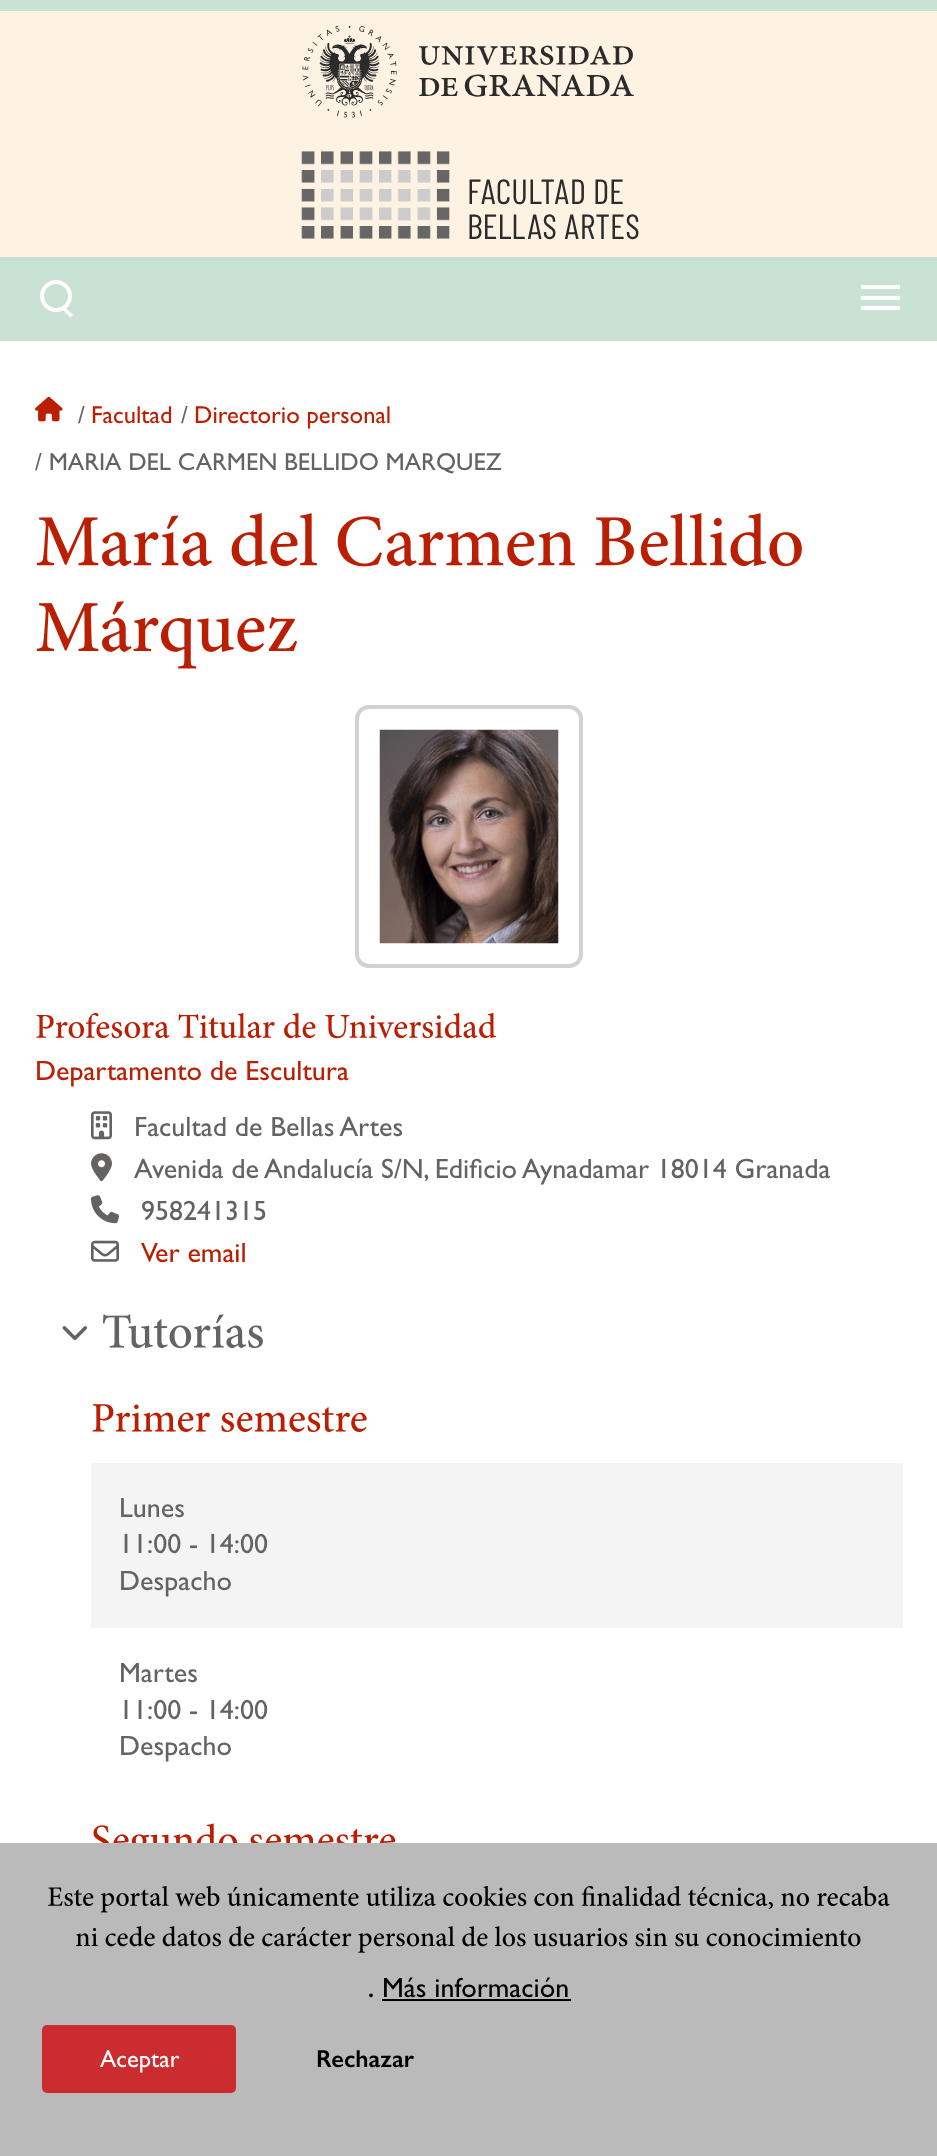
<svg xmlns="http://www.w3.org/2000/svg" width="937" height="2156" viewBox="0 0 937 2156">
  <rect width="100%" height="100%" fill="#fff"/>
  <path d="M0 0h937v11H0z" fill="#cae2d3"/>
  <path d="M0 257h937v84H0z" fill="#cae2d3"/>
  <path d="M0 11h937v246H0z" fill="#fef2e2"/>
  <image x="302" y="26" width="332" height="92" href="img/1.png"/>
  <image x="301" y="151" width="149" height="88" href="img/2.png"/>
  <circle cx="56" cy="296" r="14" fill="none" stroke="#fff" stroke-width="4"/>
  <path d="M64.5 306.5L73 315L70.5 317.5L62 309Z" fill="#fff"/>
  <path d="M861 296h39v4H861z" fill="#fff"/>
  <path d="M861 285h39v4H861z" fill="#fff"/>
  <path d="M861 306h39v4H861z" fill="#fff"/>
  <image x="35" y="397" width="28" height="25" href="img/3.png"/>
  <image x="36" y="513" width="766" height="54" href="img/4.png"/>
  <image x="36" y="601" width="261" height="68" href="img/5.png"/>
  <rect x="357" y="707" width="224" height="259" rx="12" fill="none" stroke="#d3d2d2" stroke-width="4"/>
  <image x="379" y="729" width="180" height="215" href="img/6.png"/>
  <image x="36" y="1012" width="461" height="27" href="img/7.png"/>
  <image x="91" y="1111" width="21" height="29" href="img/8.png"/>
  <image x="91" y="1153" width="21" height="29" href="img/9.png"/>
  <image x="91" y="1195" width="28" height="29" href="img/10.png"/>
  <image x="91" y="1240" width="28" height="22" href="img/11.png"/>
  <image x="62" y="1326" width="26" height="15" href="img/12.png"/>
  <image x="102" y="1314" width="161" height="35" href="img/13.png"/>
  <image x="92" y="1404" width="275" height="28" href="img/14.png"/>
  <path d="M91 1463h812v165H91z" fill="#f4f4f4"/>
  <image x="93" y="1823" width="303" height="20" href="img/15.png"/>
  <path d="M0 1843h937v313H0z" fill="#bababa"/>
  <image x="48" y="1885" width="842" height="28" href="img/16.png"/>
  <image x="76" y="1926" width="785" height="27" href="img/17.png"/>
  <path d="M382 1999h189v2H382z" fill="#000"/>
  <rect x="42" y="2025" width="194" height="68" rx="5" fill="#cb2c30"/>
  <g font-family="Barlow Condensed" font-size="35" fill="#2b2b2b">
    <text x="467" y="204">FACULTAD DE</text>
    <text x="467" y="239">BELLAS ARTES</text>
  </g>
  <text x="78" y="423" font-family="Gill Sans" font-size="24.5" fill="#656262">/</text>
  <text x="91" y="423" font-family="Gill Sans" font-size="24.5" fill="#ba1e03">Facultad</text>
  <text x="181" y="423" font-family="Gill Sans" font-size="24.5" fill="#656262">/</text>
  <text x="194" y="423" font-family="Gill Sans" font-size="24.5" fill="#ba1e03">Directorio personal</text>
  <text x="35" y="470" font-family="Gill Sans" font-size="24.5" fill="#656262">/ MARIA DEL CARMEN BELLIDO MARQUEZ</text>
  <text x="35" y="1080" font-family="Gill Sans" font-size="28" fill="#ba1e03">Departamento de Escultura</text>
  <g font-family="Gill Sans" font-size="28" fill="#656262">
    <text x="134" y="1136">Facultad de Bellas Artes</text>
    <text x="134" y="1178">Avenida de Andalucía S/N, Edificio Aynadamar 18014 Granada</text>
    <text x="141" y="1220">958241315</text>
  </g>
  <text x="141" y="1262" font-family="Gill Sans" font-size="28" fill="#ba1e03">Ver email</text>
  <g font-family="Gill Sans" font-size="28" fill="#656262">
    <text x="119" y="1517">Lunes</text>
    <text x="119" y="1553">11:00 - 14:00</text>
    <text x="119" y="1590">Despacho</text>
    <text x="119" y="1682">Martes</text>
    <text x="119" y="1719">11:00 - 14:00</text>
    <text x="119" y="1755">Despacho</text>
  </g>
  <text x="368" y="1997" font-family="Gill Sans" font-size="24.5" font-weight="600" fill="#000">.</text>
  <text x="382" y="1997" font-family="Gill Sans" font-size="28" fill="#000">Más información</text>
  <text x="100" y="2067" font-family="Gill Sans" font-size="24.5" fill="#fff">Aceptar</text>
  <text x="316" y="2067" font-family="Gill Sans" font-size="24.5" font-weight="600" fill="#000">Rechazar</text>
</svg>
